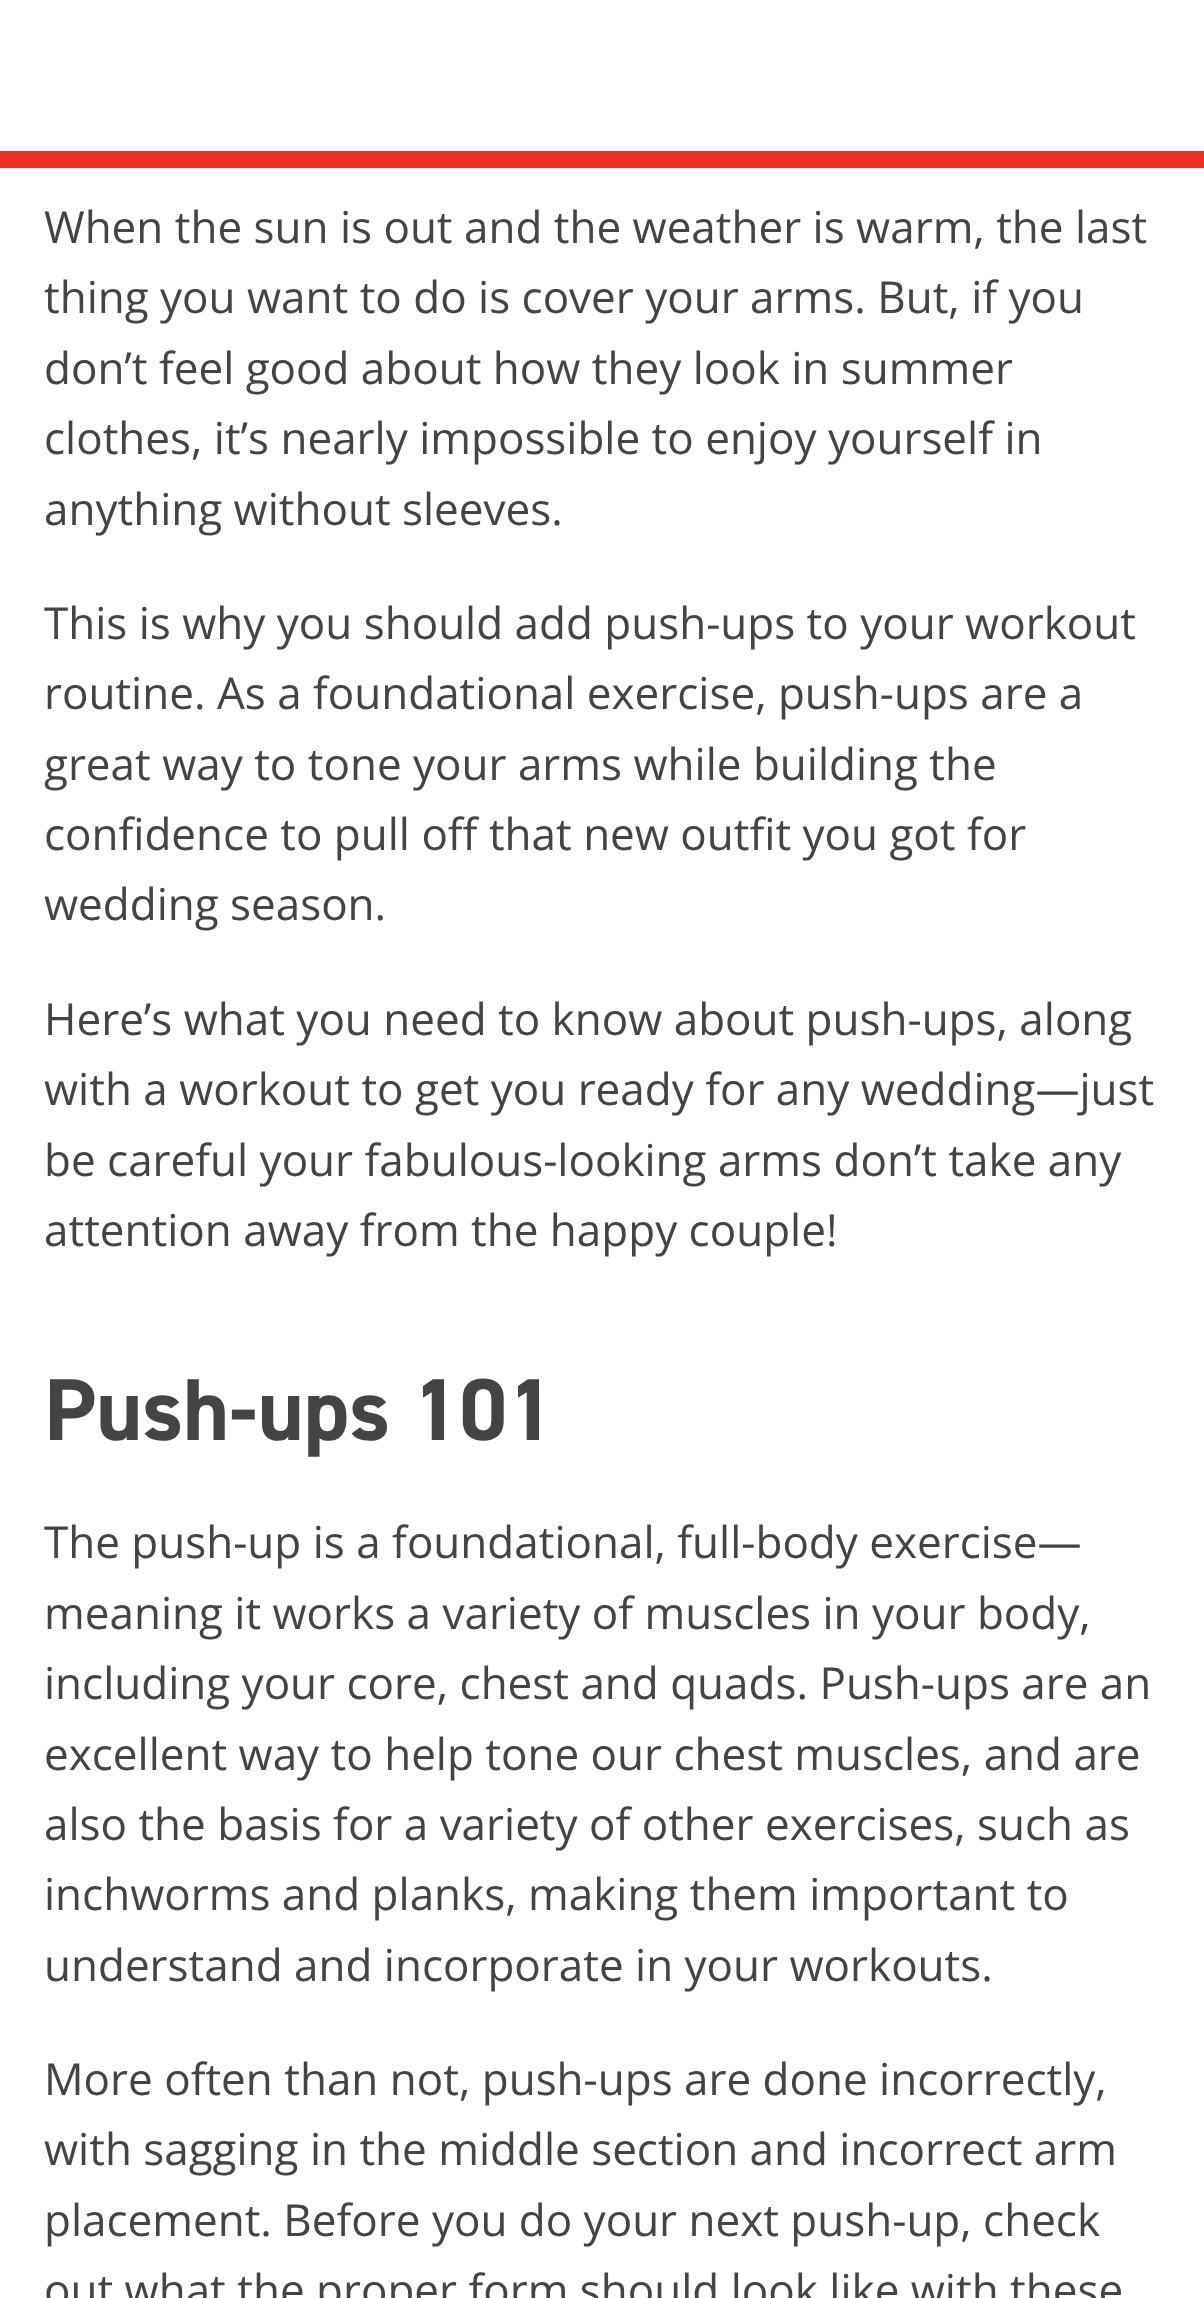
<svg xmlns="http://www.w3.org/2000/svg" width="1204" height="2298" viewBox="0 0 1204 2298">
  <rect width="100%" height="100%" fill="#fff"/>
  <path d="M0 151h1204v17H0z" fill="#ee3124"/>
  <g font-family="Open Sans" font-size="44" fill="#444">
    <text x="44" y="243">When the sun is out and the weather is warm, the last</text>
    <text x="44" y="313">thing you want to do is cover your arms. But, if you</text>
    <text x="44" y="384">don’t feel good about how they look in summer</text>
    <text x="44" y="454">clothes, it’s nearly impossible to enjoy yourself in</text>
    <text x="44" y="525">anything without sleeves.</text>
    <text x="44" y="639">This is why you should add push-ups to your workout</text>
    <text x="44" y="709">routine. As a foundational exercise, push-ups are a</text>
    <text x="44" y="780">great way to tone your arms while building the</text>
    <text x="44" y="850">confidence to pull off that new outfit you got for</text>
    <text x="44" y="920">wedding season.</text>
    <text x="44" y="1035">Here’s what you need to know about push-ups, along</text>
    <text x="44" y="1105">with a workout to get you ready for any wedding—just</text>
    <text x="44" y="1176">be careful your fabulous-looking arms don’t take any</text>
    <text x="44" y="1246">attention away from the happy couple!</text>
  </g>
  <text x="44" y="1440" font-family="'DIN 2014'" font-size="88" font-weight="bold" fill="#444">Push-ups 101</text>
  <g font-family="Open Sans" font-size="44" fill="#444">
    <text x="44" y="1558">The push-up is a foundational, full-body exercise—</text>
    <text x="44" y="1629">meaning it works a variety of muscles in your body,</text>
    <text x="44" y="1699">including your core, chest and quads. Push-ups are an</text>
    <text x="44" y="1770">excellent way to help tone our chest muscles, and are</text>
    <text x="44" y="1840">also the basis for a variety of other exercises, such as</text>
    <text x="44" y="1910">inchworms and planks, making them important to</text>
    <text x="44" y="1981">understand and incorporate in your workouts.</text>
    <text x="44" y="2095">More often than not, push-ups are done incorrectly,</text>
    <text x="44" y="2165">with sagging in the middle section and incorrect arm</text>
    <text x="44" y="2236">placement. Before you do your next push-up, check</text>
    <text x="44" y="2306">out what the proper form should look like with these</text>
  </g>
</svg>
